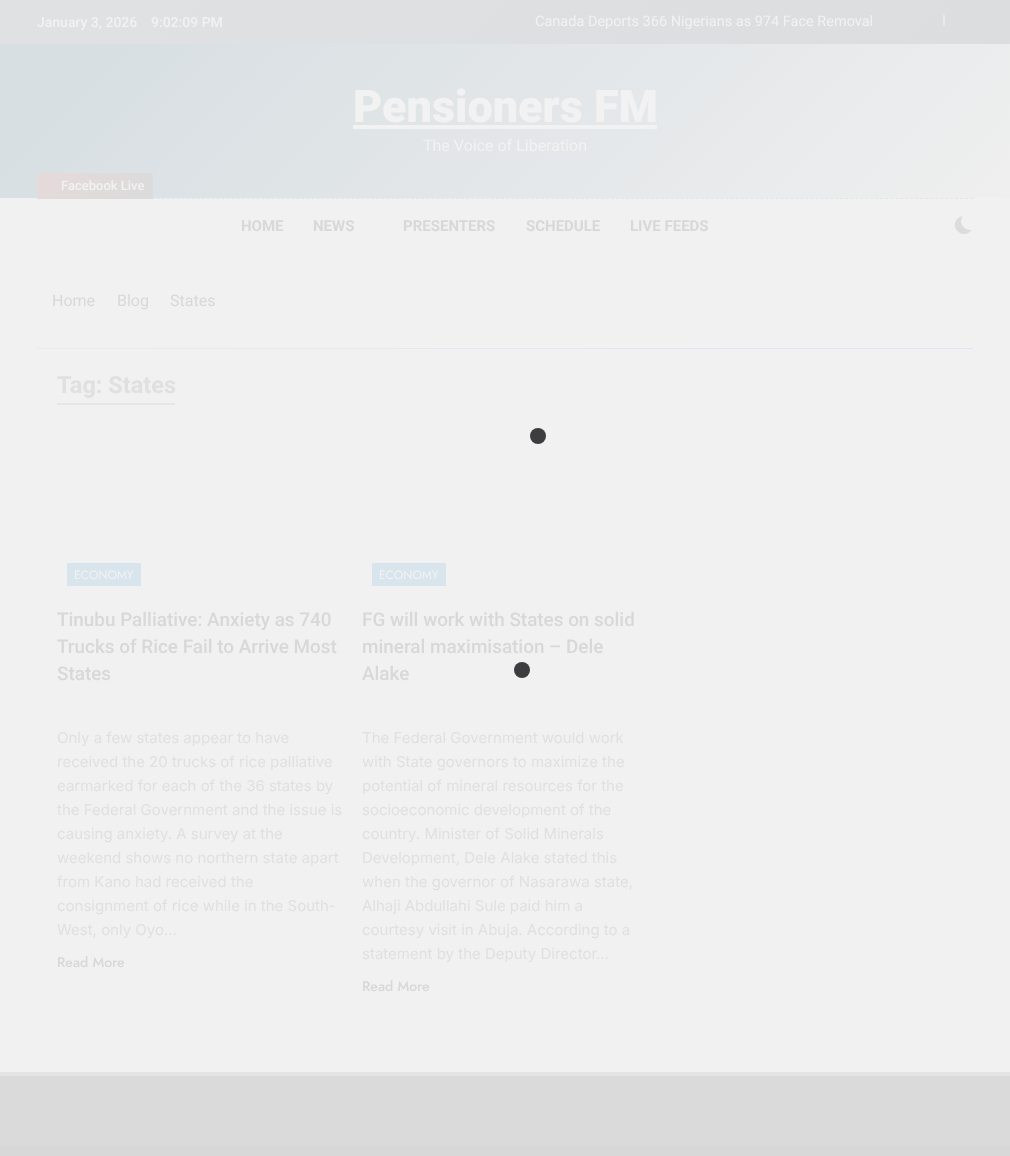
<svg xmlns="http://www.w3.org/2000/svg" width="1010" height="1156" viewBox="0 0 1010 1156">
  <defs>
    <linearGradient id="g1" gradientUnits="userSpaceOnUse" x1="241" y1="-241" x2="769" y2="286"><stop offset="0.1" stop-color="#dfe1e2"/><stop offset="1" stop-color="#dcddde"/></linearGradient>
    <linearGradient id="g2" gradientUnits="userSpaceOnUse" x1="214" y1="-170" x2="796" y2="412"><stop offset="0.1" stop-color="#d8dfe3"/><stop offset="1" stop-color="#efefef"/></linearGradient>
    <linearGradient id="g3" gradientUnits="userSpaceOnUse" x1="59" y1="151" x2="131" y2="222"><stop offset="0.13" stop-color="#e5dada"/><stop offset="0.89" stop-color="#dbdbdb"/></linearGradient>
    <linearGradient id="g4" gradientUnits="userSpaceOnUse" x1="271" y1="114" x2="739" y2="583"><stop offset="0.1" stop-color="#ede8f1"/><stop offset="1" stop-color="#e4e2f0"/></linearGradient>
    <linearGradient id="g5" gradientUnits="userSpaceOnUse" x1="116" y1="399" x2="116" y2="409"><stop offset="0" stop-color="#dcdcdc"/><stop offset="1" stop-color="#f0f0f0"/></linearGradient>
  </defs>
  <rect width="100%" height="100%" fill="#f1f1f1"/>
  <path d="M0 1077h1010v68H0z" fill="#dadada"/>
  <path d="M0 0h1010v44H0z" fill="url(#g1)"/>
  <path d="M943 15h2v11H943z" fill="#e9e9ea"/>
  <path d="M0 44h1010v154H0z" fill="url(#g2)"/>
  <path d="M353 125h304v4H353z" fill="#f2f2f2"/>
  <path d="M37 198.5H973" fill="none" stroke="#e2e4e6" stroke-dasharray="3 1.99"/>
  <path d="M40 173H150C151.5 173 153 174.5 153 176V199H37V176C37 174.5 38.5 173 40 173Z" fill="url(#g3)"/>
  <path d="M971.5 230C964 231 958 223 962.5 216C959.5 216.5 957.5 218.5 956 220.5C950.5 230.5 965.5 239.5 971.5 230Z" fill="#dcdcdc"/>
  <path d="M37 348h936v1H37z" fill="url(#g4)"/>
  <path d="M57 403h118v2H57z" fill="url(#g5)"/>
  <path d="M67 563h74v23H67z" fill="#d8e5ec"/>
  <path d="M372 563h74v23H372z" fill="#d8e5ec"/>
  <circle cx="538" cy="436" r="8" fill="#3d3d3f"/>
  <circle cx="522" cy="670" r="8" fill="#3d3d3f"/>
  <path d="M0 1072h1010v4H0z" fill="#e2e4e6"/>
  <path d="M0 1076h1010v1H0z" fill="#d9d9d9"/>
  <path d="M0 1145h1010v11H0z" fill="#d8d8d8"/>
  <g font-family="Roboto" font-size="14" font-weight="500" fill="#f2f2f2">
    <text x="37" y="27">January 3, 2026</text>
    <text x="151" y="27">9:02:09 PM</text>
  </g>
  <text x="535" y="26" font-family="Roboto" font-size="14.5" fill="#f2f2f2">Canada Deports 366 Nigerians as 974 Face Removal</text>
  <text x="353" y="122" font-family="Roboto" font-size="45" font-weight="900" fill="#f2f2f2">Pensioners FM</text>
  <text x="423" y="151" font-family="Roboto" font-size="16" fill="#f2f2f2">The Voice of Liberation</text>
  <text x="61" y="190" font-family="Roboto" font-size="13" font-weight="500" fill="#f2f2f2">Facebook Live</text>
  <g font-family="Roboto" font-size="15" font-weight="bold" fill="#d8d8d8">
    <text x="241" y="231">HOME</text>
    <text x="313" y="231">NEWS</text>
    <text x="403" y="231">PRESENTERS</text>
    <text x="526" y="231">SCHEDULE</text>
    <text x="630" y="231">LIVE FEEDS</text>
  </g>
  <g font-family="Roboto" font-size="16" fill="#d8d8d8">
    <text x="52" y="306">Home</text>
    <text x="117" y="306">Blog</text>
    <text x="170" y="306">States</text>
  </g>
  <text x="57" y="393" font-family="Roboto" font-size="23.5" font-weight="bold" fill="#e0e0e0">Tag: States</text>
  <text x="74" y="579" font-family="Jost" font-size="12" fill="#f2f2f2">ECONOMY</text>
  <g font-family="Roboto" font-size="18.9" font-weight="500" fill="#d8d8d8">
    <text x="57" y="626">Tinubu Palliative: Anxiety as 740</text>
    <text x="57" y="653">Trucks of Rice Fail to Arrive Most</text>
    <text x="57" y="680">States</text>
  </g>
  <g font-family="Inter" font-size="15" fill="#e0e0e0">
    <text x="57" y="743">Only a few states appear to have</text>
    <text x="57" y="767">received the 20 trucks of rice palliative</text>
    <text x="57" y="791">earmarked for each of the 36 states by</text>
    <text x="57" y="815">the Federal Government and the issue is</text>
    <text x="57" y="839">causing anxiety. A survey at the</text>
    <text x="57" y="863">weekend shows no northern state apart</text>
    <text x="57" y="887">from Kano had received the</text>
    <text x="57" y="911">consignment of rice while in the South-</text>
    <text x="57" y="935">West, only Oyo…</text>
  </g>
  <text x="57" y="967" font-family="Jost" font-size="14" font-weight="500" fill="#d8d8d8">Read More</text>
  <text x="379" y="579" font-family="Jost" font-size="12" fill="#f2f2f2">ECONOMY</text>
  <g font-family="Roboto" font-size="18.9" font-weight="500" fill="#d8d8d8">
    <text x="362" y="626">FG will work with States on solid</text>
    <text x="362" y="653">mineral maximisation – Dele</text>
    <text x="362" y="680">Alake</text>
  </g>
  <g font-family="Inter" font-size="15" fill="#e0e0e0">
    <text x="362" y="743">The Federal Government would work</text>
    <text x="362" y="767">with State governors to maximize the</text>
    <text x="362" y="791">potential of mineral resources for the</text>
    <text x="362" y="815">socioeconomic development of the</text>
    <text x="362" y="839">country. Minister of Solid Minerals</text>
    <text x="362" y="863">Development, Dele Alake stated this</text>
    <text x="362" y="887">when the governor of Nasarawa state,</text>
    <text x="362" y="911">Alhaji Abdullahi Sule paid him a</text>
    <text x="362" y="935">courtesy visit in Abuja. According to a</text>
    <text x="362" y="959">statement by the Deputy Director…</text>
  </g>
  <text x="362" y="991" font-family="Jost" font-size="14" font-weight="500" fill="#d8d8d8">Read More</text>
</svg>
